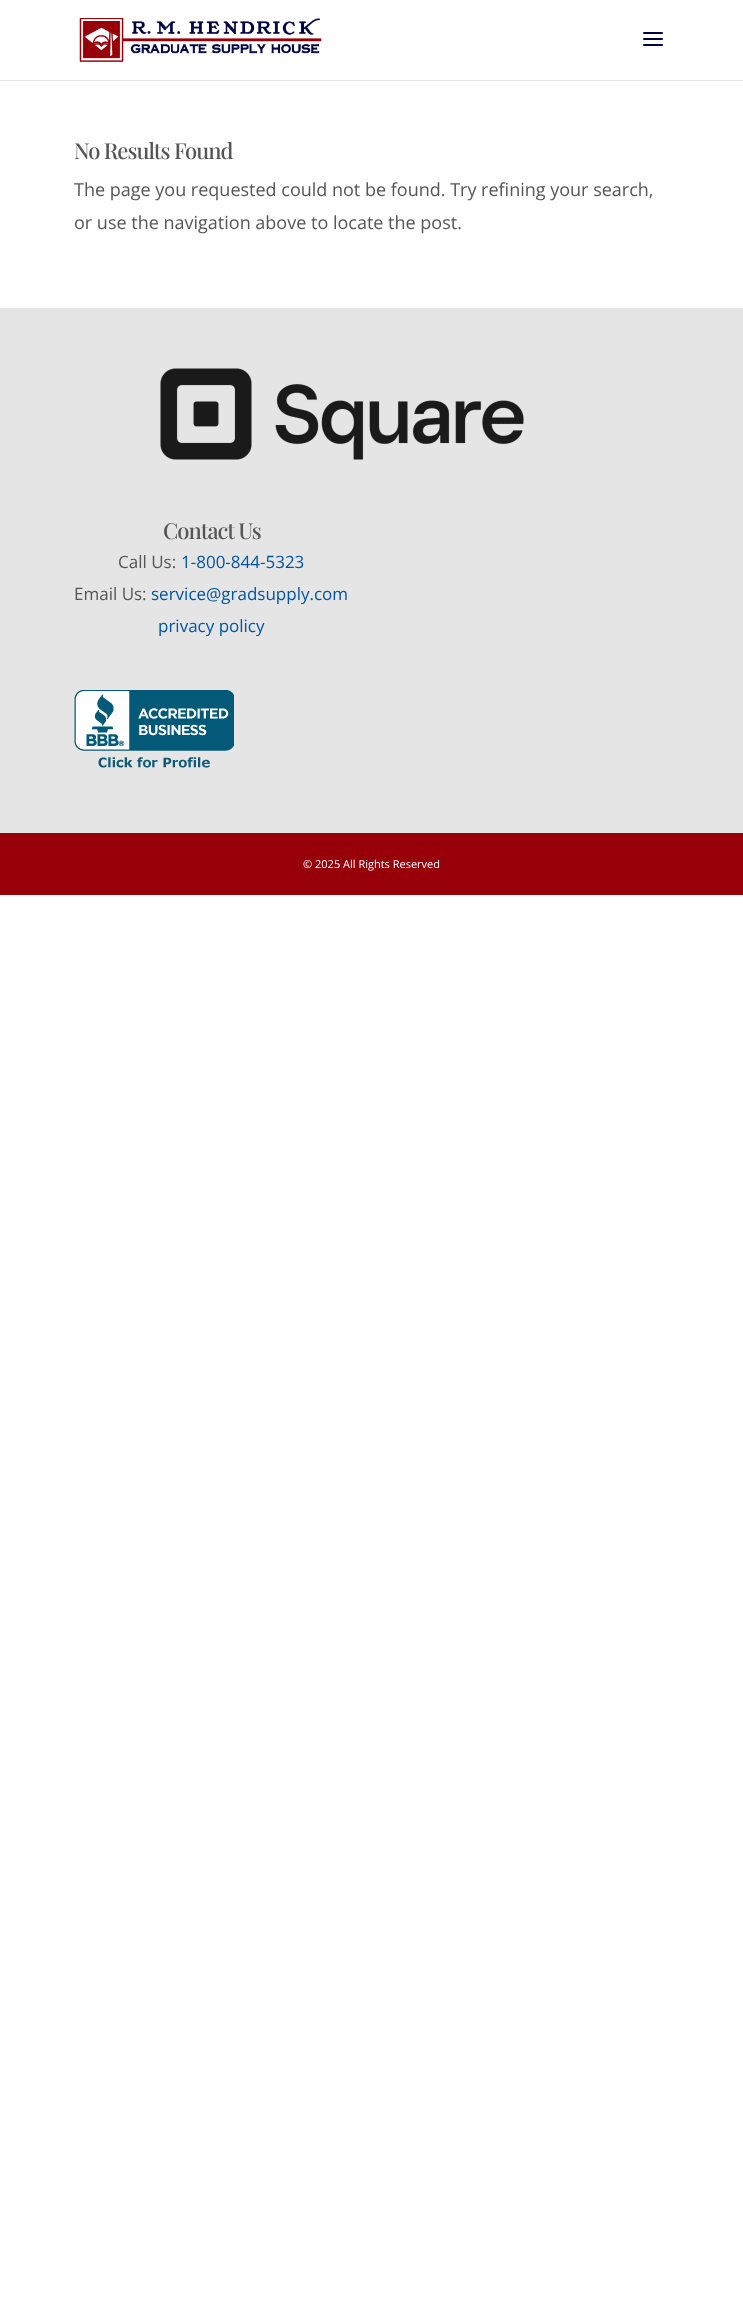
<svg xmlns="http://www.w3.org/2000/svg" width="743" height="2302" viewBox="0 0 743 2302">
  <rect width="100%" height="100%" fill="#fff"/>
  <path d="M0 80h743v1H0z" fill="#e6e6e6"/>
  <image x="79" y="18" width="243" height="44" href="img/1.png"/>
  <image x="643" y="32" width="20" height="14" href="img/2.png"/>
  <path d="M0 308h743v525H0z" fill="#e5e5e5"/>
  <image x="160" y="368" width="364" height="92" href="img/3.png"/>
  <image x="74" y="690" width="160" height="78" href="img/4.png"/>
  <path d="M0 833h743v62H0z" fill="#970009"/>
  <text x="74" y="159" font-family="Playfair Display" font-size="22" font-weight="500" letter-spacing="-1" fill="#555">No Results Found</text>
  <g font-family="Open Sans" font-size="18" fill="#555">
    <text x="74" y="196">The page you requested could not be found. Try refining your search,</text>
    <text x="74" y="229">or use the navigation above to locate the post.</text>
  </g>
  <text x="163" y="539" font-family="Playfair Display" font-size="22" font-weight="500" letter-spacing="-1" fill="#555">Contact Us</text>
  <text x="118" y="568" font-family="Open Sans" font-size="17" fill="#555">Call Us:</text>
  <text x="181" y="568" font-family="Open Sans" font-size="17" fill="#0055a5">1-800-844-5323</text>
  <text x="74" y="600" font-family="Open Sans" font-size="17" fill="#555">Email Us:</text>
  <g font-family="Open Sans" font-size="17" fill="#0055a5">
    <text x="151" y="600">service@gradsupply.com</text>
    <text x="158" y="632">privacy policy</text>
  </g>
  <text x="303" y="868" font-family="Open Sans" font-size="11" fill="#fff">© 2025 All Rights Reserved</text>
</svg>
